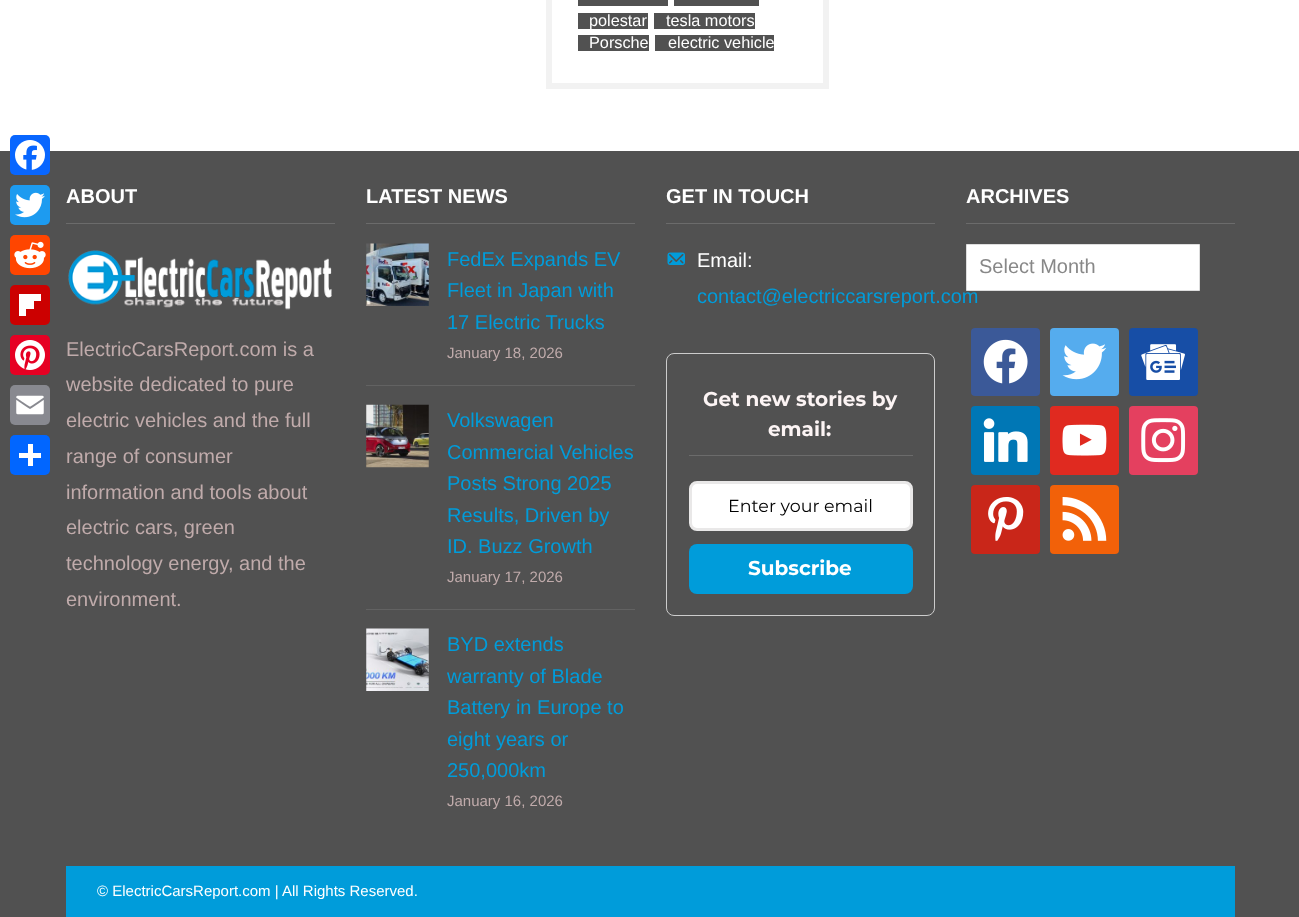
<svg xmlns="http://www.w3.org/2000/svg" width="1299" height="917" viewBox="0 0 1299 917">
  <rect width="100%" height="100%" fill="#fff"/>
  <path d="M0 151h1299v766H0z" fill="#515151"/>
  <rect x="10" y="135" width="40" height="40" rx="5" fill="#0866ff"/>
  <image x="15" y="140" width="30" height="30" href="img/1.png"/>
  <rect x="10" y="185" width="40" height="40" rx="5" fill="#1d9bf0"/>
  <image x="15" y="192" width="30" height="26" href="img/2.png"/>
  <rect x="10" y="235" width="40" height="40" rx="5" fill="#ff4500"/>
  <image x="14" y="241" width="32" height="28" href="img/3.png"/>
  <rect x="10" y="285" width="40" height="40" rx="5" fill="#c00"/>
  <path d="M26 301h8v8H26z" fill="#fff"/>
  <path d="M19 294h22v7H19z" fill="#fff"/>
  <path d="M19 294h7v22H19z" fill="#fff"/>
  <rect x="10" y="335" width="40" height="40" rx="5" fill="#e60023"/>
  <image x="15" y="340" width="30" height="30" href="img/4.png"/>
  <rect x="10" y="385" width="40" height="40" rx="5" fill="#888990"/>
  <image x="16" y="395" width="28" height="20" href="img/5.png"/>
  <rect x="10" y="435" width="40" height="40" rx="5" fill="#0166ff"/>
  <path d="M28 444h5v22H28z" fill="#fff"/>
  <path d="M19 453h22v5H19z" fill="#fff"/>
  <path d="M549 -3h277v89H549z" fill="none" stroke="#f2f2f2" stroke-width="6"/>
  <path d="M578 0h90v6H578z" fill="#515151"/>
  <path d="M674 0h85v6H674z" fill="#515151"/>
  <path d="M578 13h70v16H578z" fill="#515151"/>
  <path d="M654 13h101v16H654z" fill="#515151"/>
  <path d="M578 35h71v16H578z" fill="#515151"/>
  <path d="M655 35h119v16H655z" fill="#515151"/>
  <path d="M66 223h269v1H66z" fill="#6b6b6b"/>
  <image x="68" y="250" width="264" height="60" href="img/6.png"/>
  <path d="M366 223h269v1H366z" fill="#6b6b6b"/>
  <image x="366" y="243" width="63" height="63" href="img/7.png"/>
  <path d="M366 385h269v1H366z" fill="#626262"/>
  <image x="366" y="404" width="63" height="64" href="img/8.png"/>
  <path d="M366 609h269v1H366z" fill="#626262"/>
  <image x="366" y="628" width="63" height="63" href="img/9.png"/>
  <path d="M666 223h269v1H666z" fill="#6b6b6b"/>
  <image x="667" y="252" width="18" height="13" href="img/10.png"/>
  <rect x="666.5" y="353.5" width="268" height="262" rx="7.5" fill="none" stroke="#ccc"/>
  <path d="M689 455h224v1H689z" fill="#6b6b6b"/>
  <rect x="690.5" y="482.5" width="221" height="47" rx="6.5" fill="#fff" stroke="#e9e8e8" stroke-width="3"/>
  <rect x="689" y="544" width="224" height="50" rx="8" fill="#009cda"/>
  <path d="M966 223h269v1H966z" fill="#6b6b6b"/>
  <rect x="971" y="328" width="69" height="68" rx="4" fill="#3b5998"/>
  <image x="983" y="339" width="45" height="45" href="img/11.png"/>
  <rect x="1050" y="328" width="69" height="68" rx="4" fill="#55acee"/>
  <image x="1062" y="343" width="45" height="37" href="img/12.png"/>
  <rect x="1129" y="328" width="69" height="68" rx="4" fill="#174ea6"/>
  <image x="1141" y="344" width="44" height="36" href="img/13.png"/>
  <rect x="971" y="406" width="69" height="69" rx="4" fill="#0077b5"/>
  <image x="983" y="418" width="45" height="44" href="img/14.png"/>
  <rect x="1050" y="406" width="69" height="69" rx="4" fill="#e02a20"/>
  <image x="1062" y="424" width="45" height="32" href="img/15.png"/>
  <rect x="1129" y="406" width="69" height="69" rx="4" fill="#e4405f"/>
  <image x="1141" y="418" width="45" height="45" href="img/16.png"/>
  <rect x="971" y="485" width="69" height="69" rx="4" fill="#c92619"/>
  <image x="988" y="497" width="36" height="44" href="img/17.png"/>
  <rect x="1050" y="485" width="69" height="69" rx="4" fill="#f26109"/>
  <image x="1062" y="497" width="45" height="44" href="img/18.png"/>
  <path d="M66 866h1169v51H66z" fill="#009cda"/>
  <g font-family="Liberation Sans" font-size="16.25" fill="#fff">
    <text x="589" y="26">polestar</text>
    <text x="666" y="26">tesla motors</text>
    <text x="589" y="48">Porsche</text>
    <text x="668" y="48">electric vehicle</text>
  </g>
  <text x="66" y="203" font-family="Liberation Sans" font-size="20" font-weight="bold" fill="#fff">ABOUT</text>
  <g font-family="Liberation Sans" font-size="20" fill="#c0abab">
    <text x="66" y="356">ElectricCarsReport.com is a</text>
    <text x="66" y="391">website dedicated to pure</text>
    <text x="66" y="427">electric vehicles and the full</text>
    <text x="66" y="463">range of consumer</text>
    <text x="66" y="499">information and tools about</text>
    <text x="66" y="534">electric cars, green</text>
    <text x="66" y="570">technology energy, and the</text>
    <text x="66" y="606">environment.</text>
  </g>
  <text x="366" y="203" font-family="Liberation Sans" font-size="20" font-weight="bold" fill="#fff">LATEST NEWS</text>
  <g font-family="Liberation Sans" font-size="20" fill="#009cda">
    <text x="447" y="266">FedEx Expands EV</text>
    <text x="447" y="297">Fleet in Japan with</text>
    <text x="447" y="329">17 Electric Trucks</text>
  </g>
  <text x="447" y="358" font-family="Liberation Sans" font-size="15" fill="#c0abab">January 18, 2026</text>
  <g font-family="Liberation Sans" font-size="20" fill="#009cda">
    <text x="447" y="427">Volkswagen</text>
    <text x="447" y="459">Commercial Vehicles</text>
    <text x="447" y="490">Posts Strong 2025</text>
    <text x="447" y="522">Results, Driven by</text>
    <text x="447" y="553">ID. Buzz Growth</text>
  </g>
  <text x="447" y="582" font-family="Liberation Sans" font-size="15" fill="#c0abab">January 17, 2026</text>
  <g font-family="Liberation Sans" font-size="20" fill="#009cda">
    <text x="447" y="651">BYD extends</text>
    <text x="447" y="683">warranty of Blade</text>
    <text x="447" y="714">Battery in Europe to</text>
    <text x="447" y="746">eight years or</text>
    <text x="447" y="777">250,000km</text>
  </g>
  <text x="447" y="806" font-family="Liberation Sans" font-size="15" fill="#c0abab">January 16, 2026</text>
  <text x="666" y="203" font-family="Liberation Sans" font-size="20" font-weight="bold" fill="#fff">GET IN TOUCH</text>
  <text x="697" y="267" font-family="Liberation Sans" font-size="20" fill="#fff">Email:</text>
  <text x="697" y="303" font-family="Liberation Sans" font-size="20" fill="#009cda">contact@electriccarsreport.com</text>
  <g font-family="Montserrat" font-size="20" font-weight="100" fill="#fcf4f4">
    <text x="703" y="406">Get new stories by</text>
    <text x="768" y="436">email:</text>
  </g>
  <text x="728" y="512" font-family="'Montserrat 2'" font-size="17.5" font-weight="100" fill="#000">Enter your email</text>
  <text x="748" y="575" font-family="Montserrat" font-size="20" font-weight="100" fill="#fff">Subscribe</text>
  <text x="966" y="203" font-family="Liberation Sans" font-size="20" font-weight="bold" fill="#fff">ARCHIVES</text>
  <path d="M966.5 244.5h233v46H966.5z" fill="#fff" stroke="#ddd"/>
  <text x="979" y="273" font-family="Liberation Sans" font-size="20" fill="#888">Select Month</text>
  <text x="97" y="896" font-family="Liberation Sans" font-size="15" fill="#fff">© ElectricCarsReport.com | All Rights Reserved.</text>
</svg>
